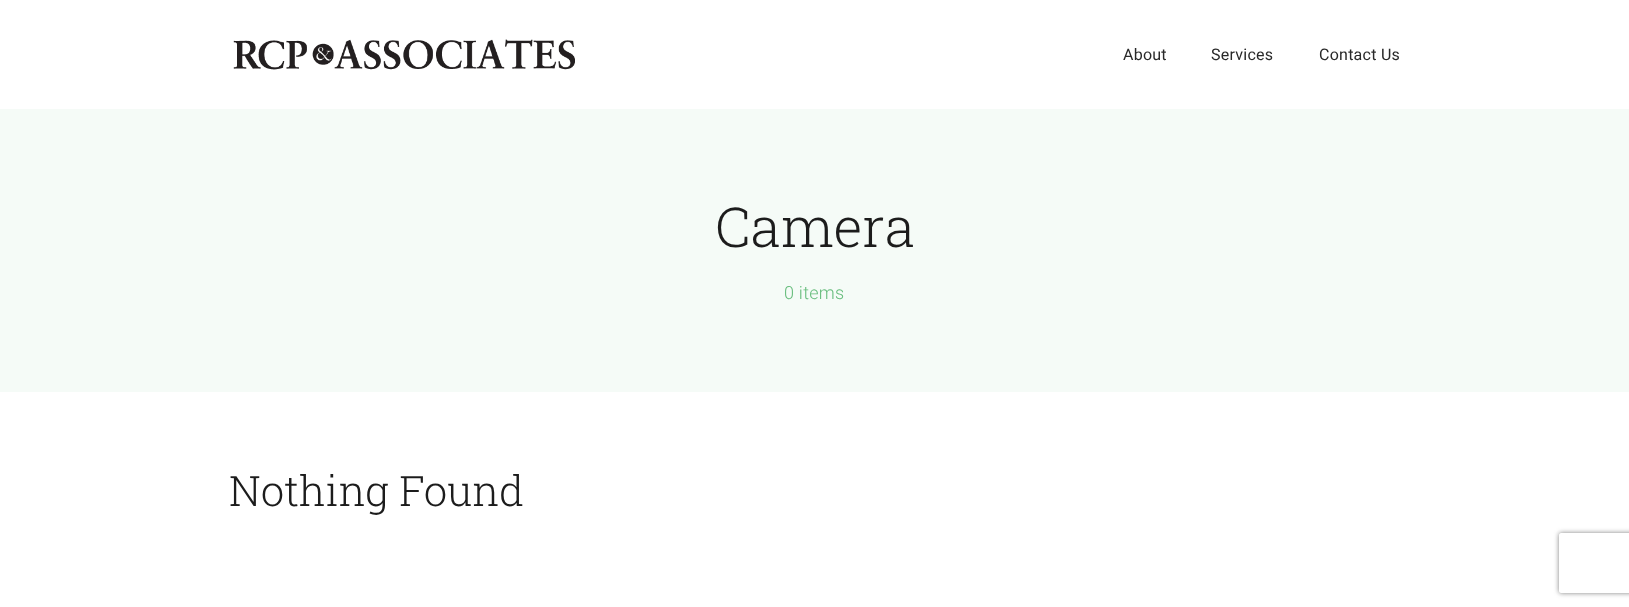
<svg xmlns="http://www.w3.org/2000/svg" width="1629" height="607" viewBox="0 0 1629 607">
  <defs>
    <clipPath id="clip1"><path d="M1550 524H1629V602H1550ZM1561 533H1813C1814 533 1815 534 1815 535V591C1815 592 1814 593 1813 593H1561C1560 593 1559 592 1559 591V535C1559 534 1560 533 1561 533Z" clip-rule="evenodd"/></clipPath>
  </defs>
  <rect width="100%" height="100%" fill="#fff"/>
  <image x="233" y="39" width="342" height="31" href="img/1.png"/>
  <path d="M0 109h1629v283H0z" fill="#f5fbf7"/>
  <g clip-path="url(#clip1)">
    <rect x="1559" y="533" width="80" height="60" rx="2" fill="#808080" filter="blur(2.5px)"/>
  </g>
  <g font-family="Roboto" font-size="16" letter-spacing="0.25" fill="#292929">
    <text x="1123" y="60">About</text>
    <text x="1211" y="60">Services</text>
    <text x="1319" y="60">Contact Us</text>
  </g>
  <text x="715" y="247" font-family="Roboto Slab" font-size="55" font-weight="300" fill="#1c1c1c">Camera</text>
  <text x="784" y="299" font-family="Roboto" font-size="18" font-weight="300" letter-spacing="0.25" fill="#65bc7b">0 items</text>
  <text x="229" y="506" font-family="Roboto Slab" font-size="42" font-weight="300" fill="#1c1c1c">Nothing Found</text>
</svg>
